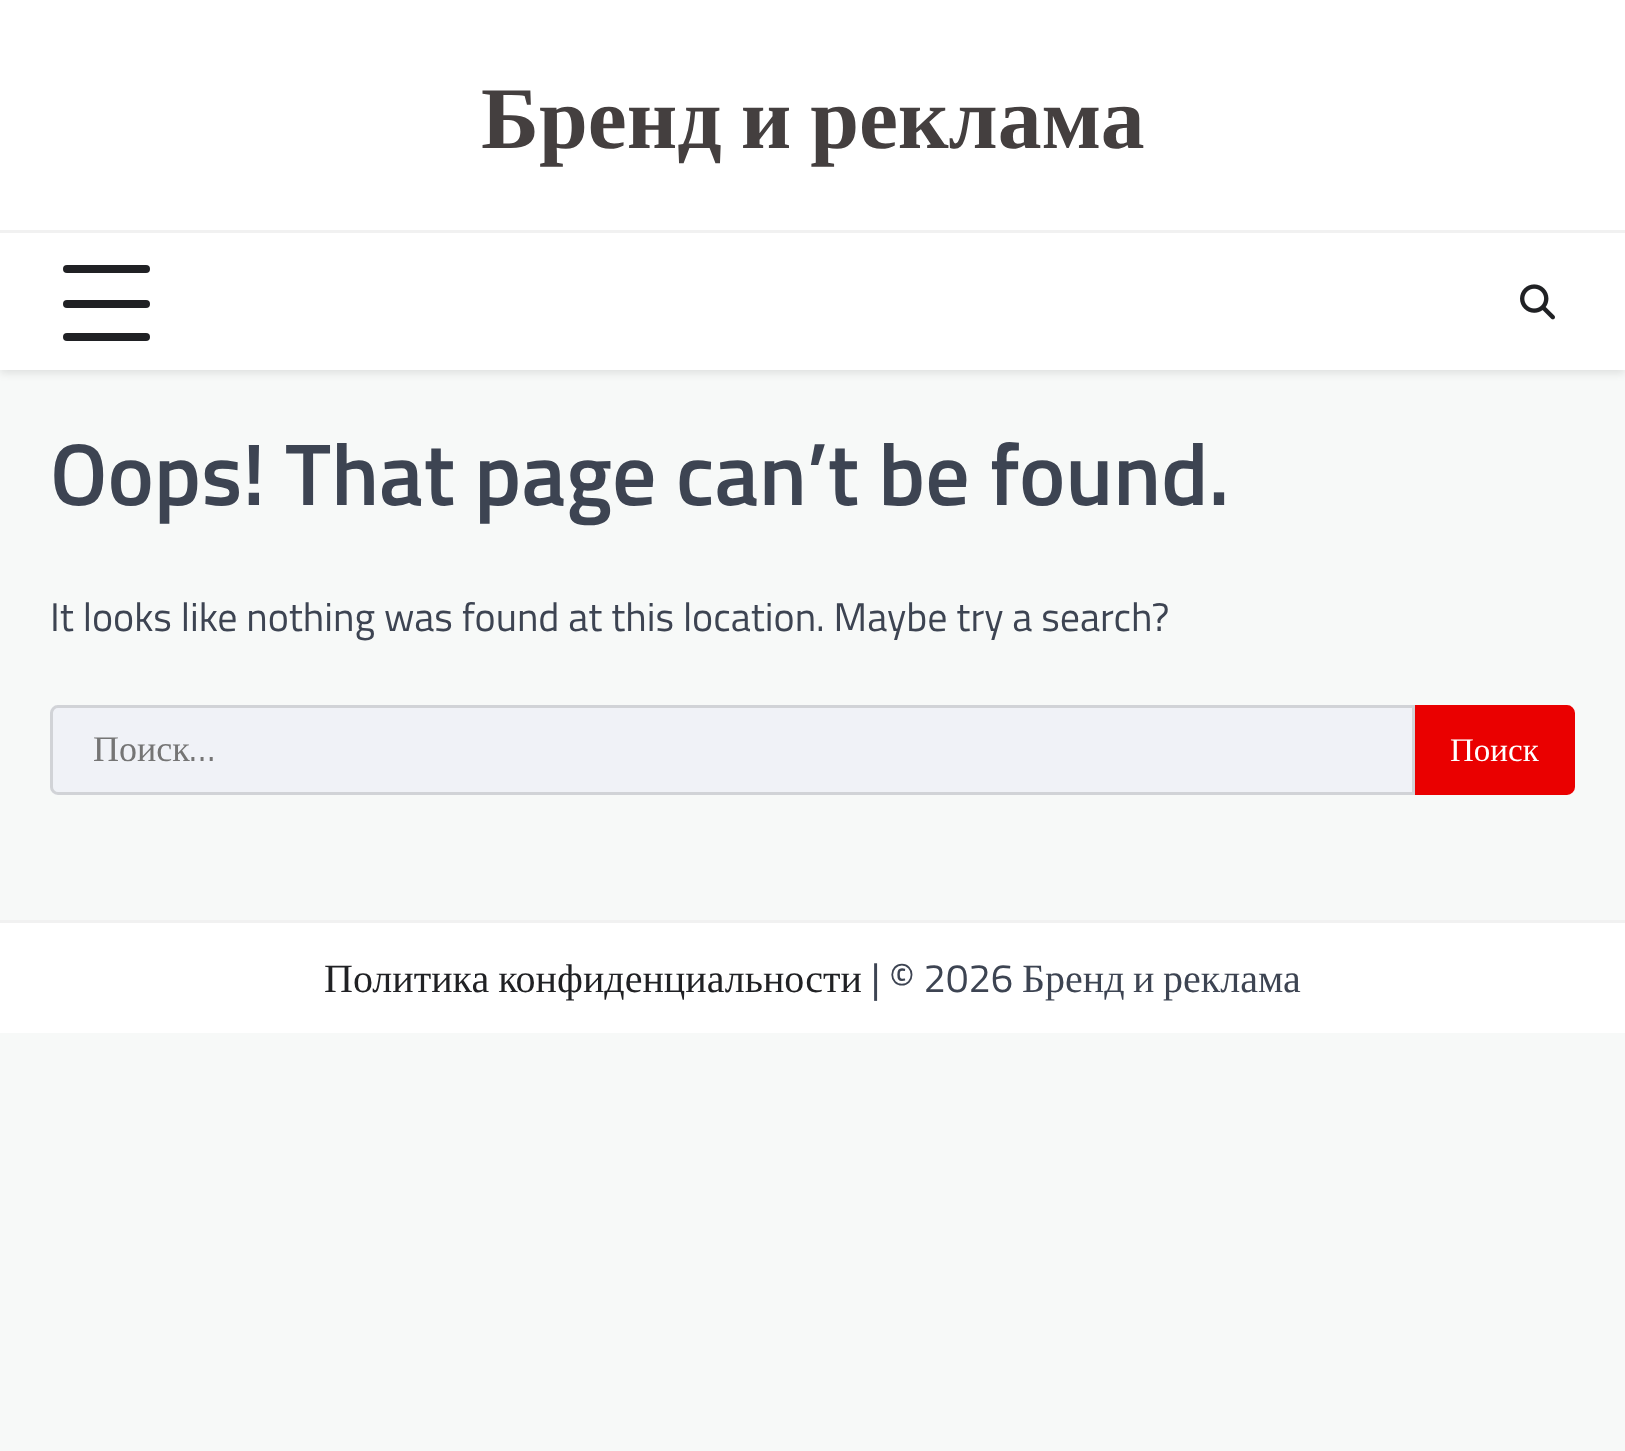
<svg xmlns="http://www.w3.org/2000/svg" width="1625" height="1451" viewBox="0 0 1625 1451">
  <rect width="100%" height="100%" fill="#f7f9f8"/>
  <path d="M0 3h1625v370H0z" fill="#0000001a" filter="blur(4px)"/>
  <path d="M0 0h1625v230H0z" fill="#fff"/>
  <path d="M0 233h1625v137H0z" fill="#fff"/>
  <path d="M0 230h1625v3H0z" fill="#f1f1f1"/>
  <rect x="63" y="265" width="87" height="8" rx="4" fill="#202124"/>
  <rect x="63" y="300" width="87" height="8" rx="4" fill="#202124"/>
  <rect x="63" y="333" width="87" height="8" rx="4" fill="#202124"/>
  <image x="1520" y="284" width="35" height="36" href="img/1.png"/>
  <path d="M58 705H1415V795H58C53.5 795 50 791.5 50 787V713C50 708.5 53.5 705 58 705Z" fill="#f0f2f7"/>
  <path d="M58 706.5H1413.5V793.5H58C54.5 793.5 51.5 790.5 51.5 787V713C51.5 709.5 54.5 706.5 58 706.5Z" fill="none" stroke="#20212426" stroke-width="3"/>
  <path d="M1416.5 706.5H1567C1570.5 706.5 1573.5 709.5 1573.5 713V787C1573.5 790.5 1570.5 793.5 1567 793.5H1416.5Z" fill="#ea0000" stroke="#ea0000" stroke-width="3"/>
  <path d="M0 923h1625v110H0z" fill="#fff"/>
  <path d="M0 920h1625v3H0z" fill="#f1f1f1"/>
  <text x="481" y="148" word-spacing="-3" font-family="Liberation Serif" font-size="87.75" font-weight="bold" fill="#443f3f">Бренд и реклама</text>
  <text x="50" y="505" font-family="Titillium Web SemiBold" font-size="87.75" font-weight="600" fill="#3d4452">Oops! That page can’t be found.</text>
  <text x="50" y="631" font-family="Titillium Web" font-size="40" fill="#3d4452">It looks like nothing was found at this location. Maybe try a search?</text>
  <text x="93" y="761" font-family="Liberation Serif" font-size="36" fill="#757575">Поиск</text>
  <text x="189" y="761" font-family="Titillium Web" font-size="36" fill="#757575">…</text>
  <text x="1450" y="761" font-family="Liberation Serif" font-size="33" fill="#fff">Поиск</text>
  <text x="324" y="992" word-spacing="-1" font-family="Liberation Serif" font-size="40" fill="#202124">Политика конфиденциальности</text>
  <text x="871" y="992" font-family="Titillium Web" font-size="40" fill="#3d4452">| © 2026</text>
  <g font-family="Liberation Serif" font-size="40" fill="#3d4452">
    <text x="1022" y="992">Бренд</text>
    <text x="1133" y="992">и</text>
    <text x="1163" y="992">реклама</text>
  </g>
</svg>
